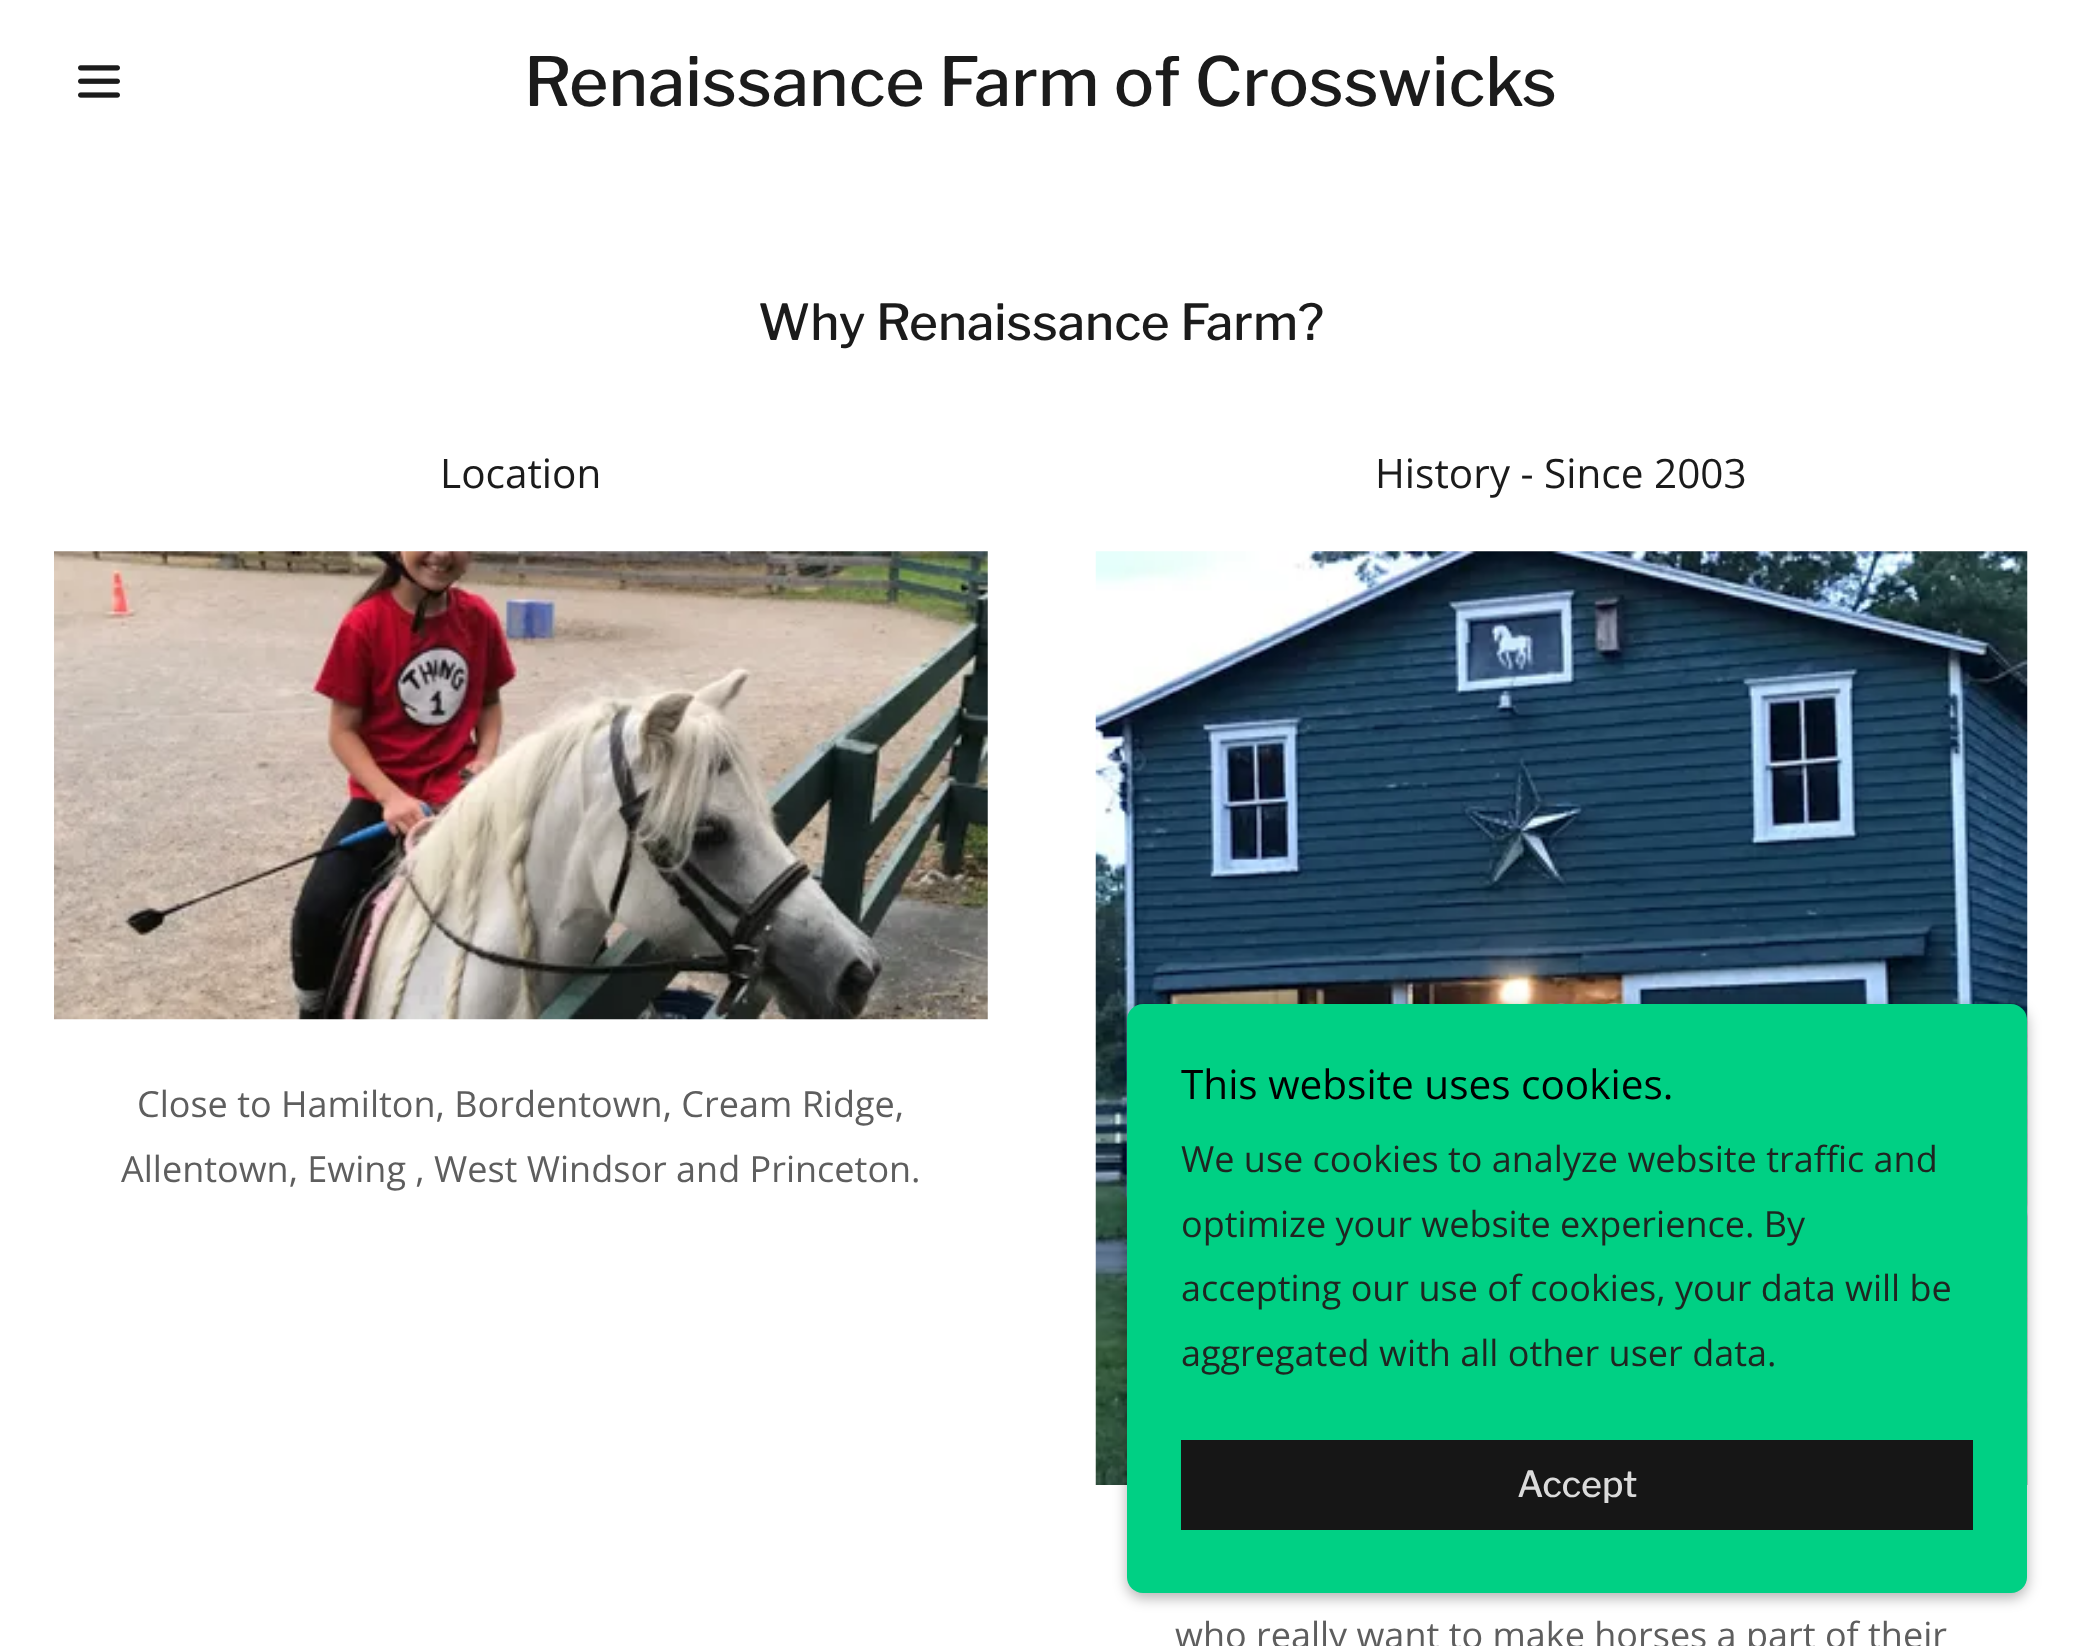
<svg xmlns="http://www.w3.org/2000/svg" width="2081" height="1646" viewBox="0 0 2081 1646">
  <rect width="100%" height="100%" fill="#fff"/>
  <image x="78" y="65" width="42" height="33" href="img/1.png"/>
  <image x="54" y="551" width="934" height="469" href="img/2.png"/>
  <image x="1095" y="551" width="933" height="934" href="img/3.png"/>
  <rect x="1127" y="1008" width="900" height="590" rx="16" fill="#0000004d" filter="blur(7px)"/>
  <rect x="1127" y="1004" width="900" height="589" rx="16" fill="#00d084"/>
  <path d="M1181 1440h792v90H1181z" fill="#161616"/>
  <text x="524" y="106" font-family="Libre Franklin" font-size="67.5" font-weight="100" fill="#1b1b1b">Renaissance Farm of Crosswicks</text>
  <text x="758" y="340" font-family="Libre Franklin" font-size="49.5" font-weight="100" fill="#1b1b1b">Why Renaissance Farm?</text>
  <text x="440" y="488" font-family="Open Sans" font-size="40.5" fill="#1b1b1b">Location</text>
  <g font-family="Open Sans" font-size="36" fill="#5e5e5e">
    <text x="137" y="1117">Close to Hamilton, Bordentown, Cream Ridge,</text>
    <text x="121" y="1182">Allentown, Ewing , West Windsor and Princeton.</text>
  </g>
  <text x="1375" y="488" font-family="Open Sans" font-size="40.5" fill="#1b1b1b">History - Since 2003</text>
  <text x="1175" y="1648" font-family="Open Sans" font-size="36" fill="#5e5e5e">who really want to make horses a part of their</text>
  <text x="1181" y="1099" font-family="Open Sans" font-size="40.5" fill="#000">This website uses cookies.</text>
  <g font-family="Open Sans" font-size="36" fill="#1f2521">
    <text x="1181" y="1172">We use cookies to analyze website traffic and</text>
    <text x="1181" y="1237">optimize your website experience. By</text>
    <text x="1181" y="1301">accepting our use of cookies, your data will be</text>
    <text x="1181" y="1366">aggregated with all other user data.</text>
  </g>
  <text x="1517" y="1497" font-family="Libre Franklin" font-size="36" font-weight="100" fill="#dbdbdb">Accept</text>
</svg>
